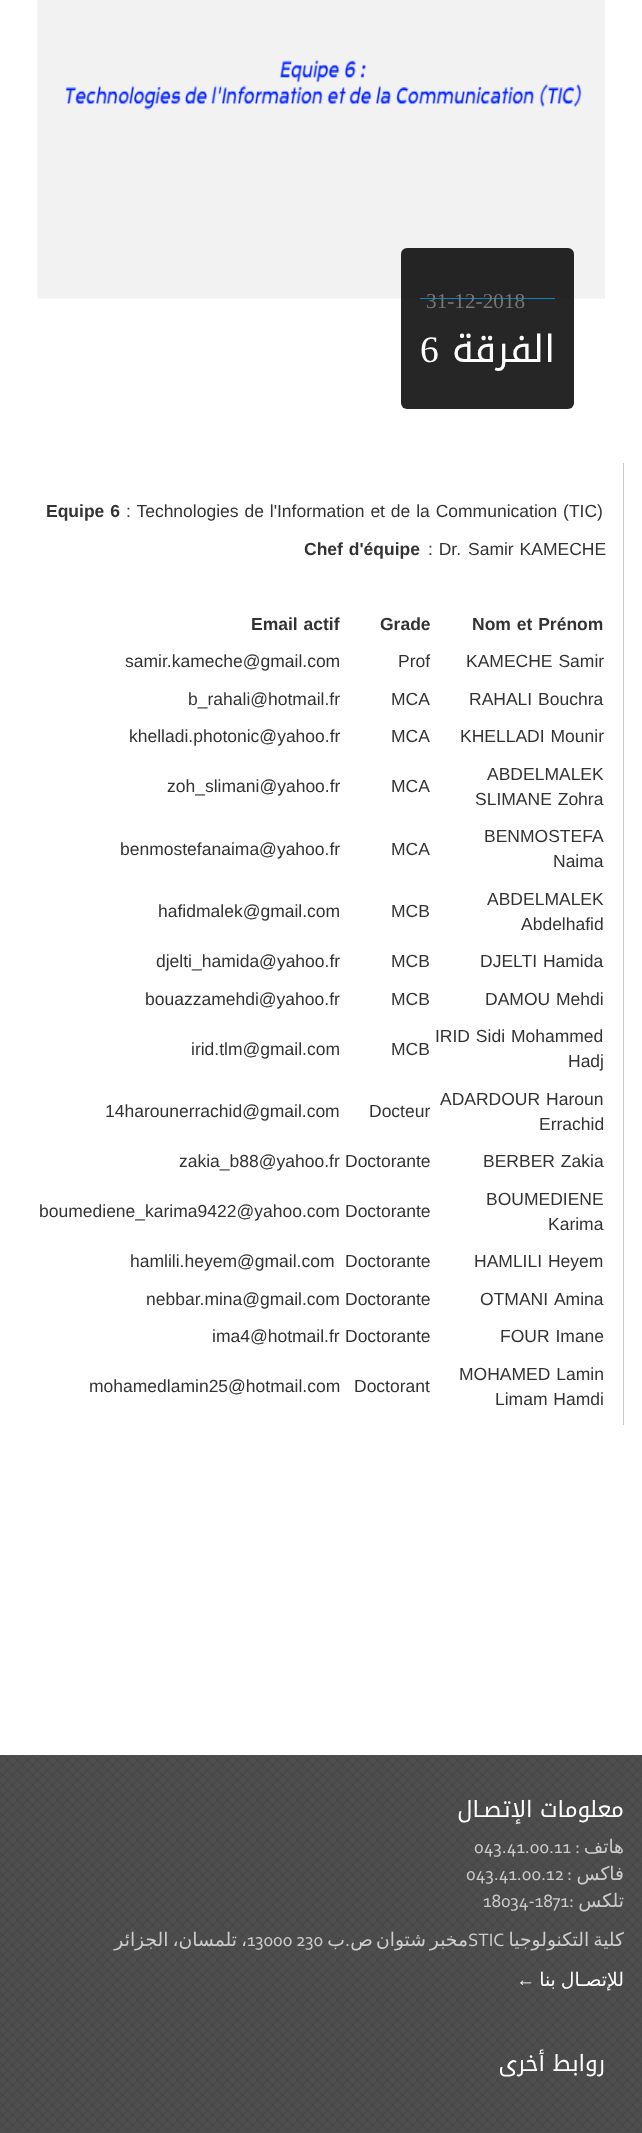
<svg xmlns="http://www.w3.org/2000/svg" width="642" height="2133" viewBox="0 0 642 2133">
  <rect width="100%" height="100%" fill="#fff"/>
  <image x="37" y="0" width="568" height="299" href="img/1.png"/>
  <rect x="401" y="248" width="173" height="161" rx="6" fill="#000000d9"/>
  <path d="M420 298h135v1H420z" fill="#127fba"/>
  <path d="M623 463h1v962H623z" fill="#ccc"/>
  <path d="M0 1755h642v378H0z" fill="#4e4e4e"/>
  <image x="0" y="1755" width="642" height="377" href="img/2.png"/>
  <text x="426" y="308" font-family="Liberation Serif" font-size="21.25" fill="#777">31-12-2018</text>
  <text x="420" y="362" font-family="Liberation Serif" font-size="37.5" fill="#fff">6</text>
  <text x="555" y="362" font-family="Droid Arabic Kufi" font-size="37.5" direction="rtl" fill="#fff">الفرقة</text>
  <text x="46" y="517" word-spacing="1" font-family="Liberation Sans" font-size="17.5" font-weight="bold" fill="#333">Equipe 6</text>
  <text x="126" y="517" word-spacing="1" font-family="Liberation Sans" font-size="17.5" fill="#333">: Technologies de l'Information et de la Communication (TIC)</text>
  <text x="304" y="555" word-spacing="1" font-family="Liberation Sans" font-size="17.5" font-weight="bold" fill="#333">Chef d'équipe</text>
  <g font-family="Liberation Sans" font-size="17.5" fill="#333">
    <text x="428" y="555" word-spacing="1">: Dr.</text>
    <text x="468" y="555" word-spacing="1">Samir KAMECHE</text>
  </g>
  <g font-family="Liberation Sans" font-size="17.5" font-weight="bold" fill="#333">
    <text x="251" y="630" word-spacing="1">Email actif</text>
    <text x="380" y="630">Grade</text>
    <text x="472" y="630" word-spacing="1">Nom et Prénom</text>
  </g>
  <g font-family="Liberation Sans" font-size="17.5" fill="#333">
    <text x="125" y="667">samir.kameche@gmail.com</text>
    <text x="398" y="667">Prof</text>
    <text x="466" y="667" word-spacing="1">KAMECHE Samir</text>
    <text x="188" y="705">b_rahali@hotmail.fr</text>
    <text x="391" y="705">MCA</text>
    <text x="469" y="705" word-spacing="1">RAHALI Bouchra</text>
    <text x="129" y="742">khelladi.photonic@yahoo.fr</text>
    <text x="391" y="742">MCA</text>
    <text x="460" y="742" word-spacing="1">KHELLADI Mounir</text>
    <text x="167" y="792">zoh_slimani@yahoo.fr</text>
    <text x="391" y="792">MCA</text>
    <text x="487" y="780">ABDELMALEK</text>
    <text x="475" y="805" word-spacing="1">SLIMANE Zohra</text>
    <text x="120" y="855">benmostefanaima@yahoo.fr</text>
    <text x="391" y="855">MCA</text>
    <text x="484" y="842">BENMOSTEFA</text>
    <text x="553" y="867">Naima</text>
    <text x="158" y="917">hafidmalek@gmail.com</text>
    <text x="391" y="917">MCB</text>
    <text x="487" y="905">ABDELMALEK</text>
    <text x="521" y="930">Abdelhafid</text>
    <text x="156" y="967">djelti_hamida@yahoo.fr</text>
    <text x="391" y="967">MCB</text>
    <text x="480" y="967" word-spacing="1">DJELTI Hamida</text>
    <text x="145" y="1005">bouazzamehdi@yahoo.fr</text>
    <text x="391" y="1005">MCB</text>
    <text x="485" y="1005" word-spacing="1">DAMOU Mehdi</text>
    <text x="191" y="1055">irid.tlm@gmail.com</text>
    <text x="391" y="1055">MCB</text>
    <text x="435" y="1042" word-spacing="1">IRID Sidi Mohammed</text>
    <text x="568" y="1067">Hadj</text>
    <text x="105" y="1117">14harounerrachid@gmail.com</text>
    <text x="369" y="1117">Docteur</text>
    <text x="440" y="1105" word-spacing="1">ADARDOUR Haroun</text>
    <text x="539" y="1130">Errachid</text>
    <text x="179" y="1167">zakia_b88@yahoo.fr</text>
    <text x="345" y="1167">Doctorante</text>
    <text x="483" y="1167" word-spacing="1">BERBER Zakia</text>
    <text x="39" y="1217">boumediene_karima9422@yahoo.com</text>
    <text x="345" y="1217">Doctorante</text>
    <text x="486" y="1205">BOUMEDIENE</text>
    <text x="548" y="1230">Karima</text>
    <text x="130" y="1267">hamlili.heyem@gmail.com</text>
    <text x="345" y="1267">Doctorante</text>
    <text x="474" y="1267" word-spacing="1">HAMLILI Heyem</text>
    <text x="146" y="1305">nebbar.mina@gmail.com</text>
    <text x="345" y="1305">Doctorante</text>
    <text x="480" y="1305" word-spacing="2">OTMANI Amina</text>
    <text x="212" y="1342">ima4@hotmail.fr</text>
    <text x="345" y="1342">Doctorante</text>
    <text x="500" y="1342" word-spacing="1">FOUR Imane</text>
    <text x="89" y="1392">mohamedlamin25@hotmail.com</text>
    <text x="354" y="1392">Doctorant</text>
    <text x="459" y="1380" word-spacing="1">MOHAMED Lamin</text>
    <text x="495" y="1405" word-spacing="1">Limam Hamdi</text>
  </g>
  <text x="624" y="1817" font-family="Droid Arabic Kufi" font-size="22.5" direction="rtl" fill="#fff">معلومات الإتصـال</text>
  <text x="474" y="1853" font-family="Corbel" font-size="18.75" fill="#ccc">043.41.00.11</text>
  <text x="580" y="1853" font-family="Corbel" font-size="18.75" direction="rtl" fill="#ccc">:</text>
  <text x="624" y="1853" font-family="DejaVu Sans" font-size="18.75" direction="rtl" fill="#ccc">هاتف</text>
  <text x="466" y="1880" font-family="Corbel" font-size="18.75" fill="#ccc">043.41.00.12</text>
  <text x="572" y="1880" font-family="Corbel" font-size="18.75" direction="rtl" fill="#ccc">:</text>
  <text x="624" y="1880" font-family="DejaVu Sans" font-size="18.75" direction="rtl" fill="#ccc">فاكس</text>
  <text x="483" y="1907" font-family="Corbel" font-size="18.75" fill="#ccc">18034-1871</text>
  <text x="574" y="1907" font-family="Corbel" font-size="18.75" direction="rtl" fill="#ccc">:</text>
  <g font-family="DejaVu Sans" font-size="18.75" direction="rtl" fill="#ccc">
    <text x="624" y="1907">تلكس</text>
    <text x="247" y="1946" word-spacing="-2">، تلمسان، الجزائر</text>
  </g>
  <text x="247" y="1946" font-family="Corbel" font-size="18.75" fill="#ccc">13000 230</text>
  <text x="345" y="1946" font-family="DejaVu Sans" font-size="18.75" direction="rtl" fill="#ccc">ب</text>
  <text x="350" y="1946" font-family="Corbel" font-size="18.75" direction="rtl" fill="#ccc">.</text>
  <g font-family="DejaVu Sans" font-size="18.75" direction="rtl" fill="#ccc">
    <text x="373" y="1946">ص</text>
    <text x="426" y="1946">شتوان</text>
    <text x="468" y="1946">مخبر</text>
  </g>
  <text x="468" y="1946" font-family="Corbel" font-size="18.75" fill="#ccc">STIC</text>
  <text x="624" y="1946" word-spacing="-2" font-family="DejaVu Sans" font-size="18.75" direction="rtl" fill="#ccc">كلية التكنولوجيا</text>
  <text x="535" y="1986" font-family="Liberation Serif" font-size="18.75" direction="rtl" fill="#fff">←</text>
  <text x="624" y="1986" word-spacing="-1" font-family="DejaVu Sans" font-size="18.75" direction="rtl" fill="#fff">للإتصـال بنا</text>
  <text x="605" y="2071" font-family="Droid Arabic Kufi" font-size="22.5" direction="rtl" fill="#fff">روابط أخرى</text>
</svg>
